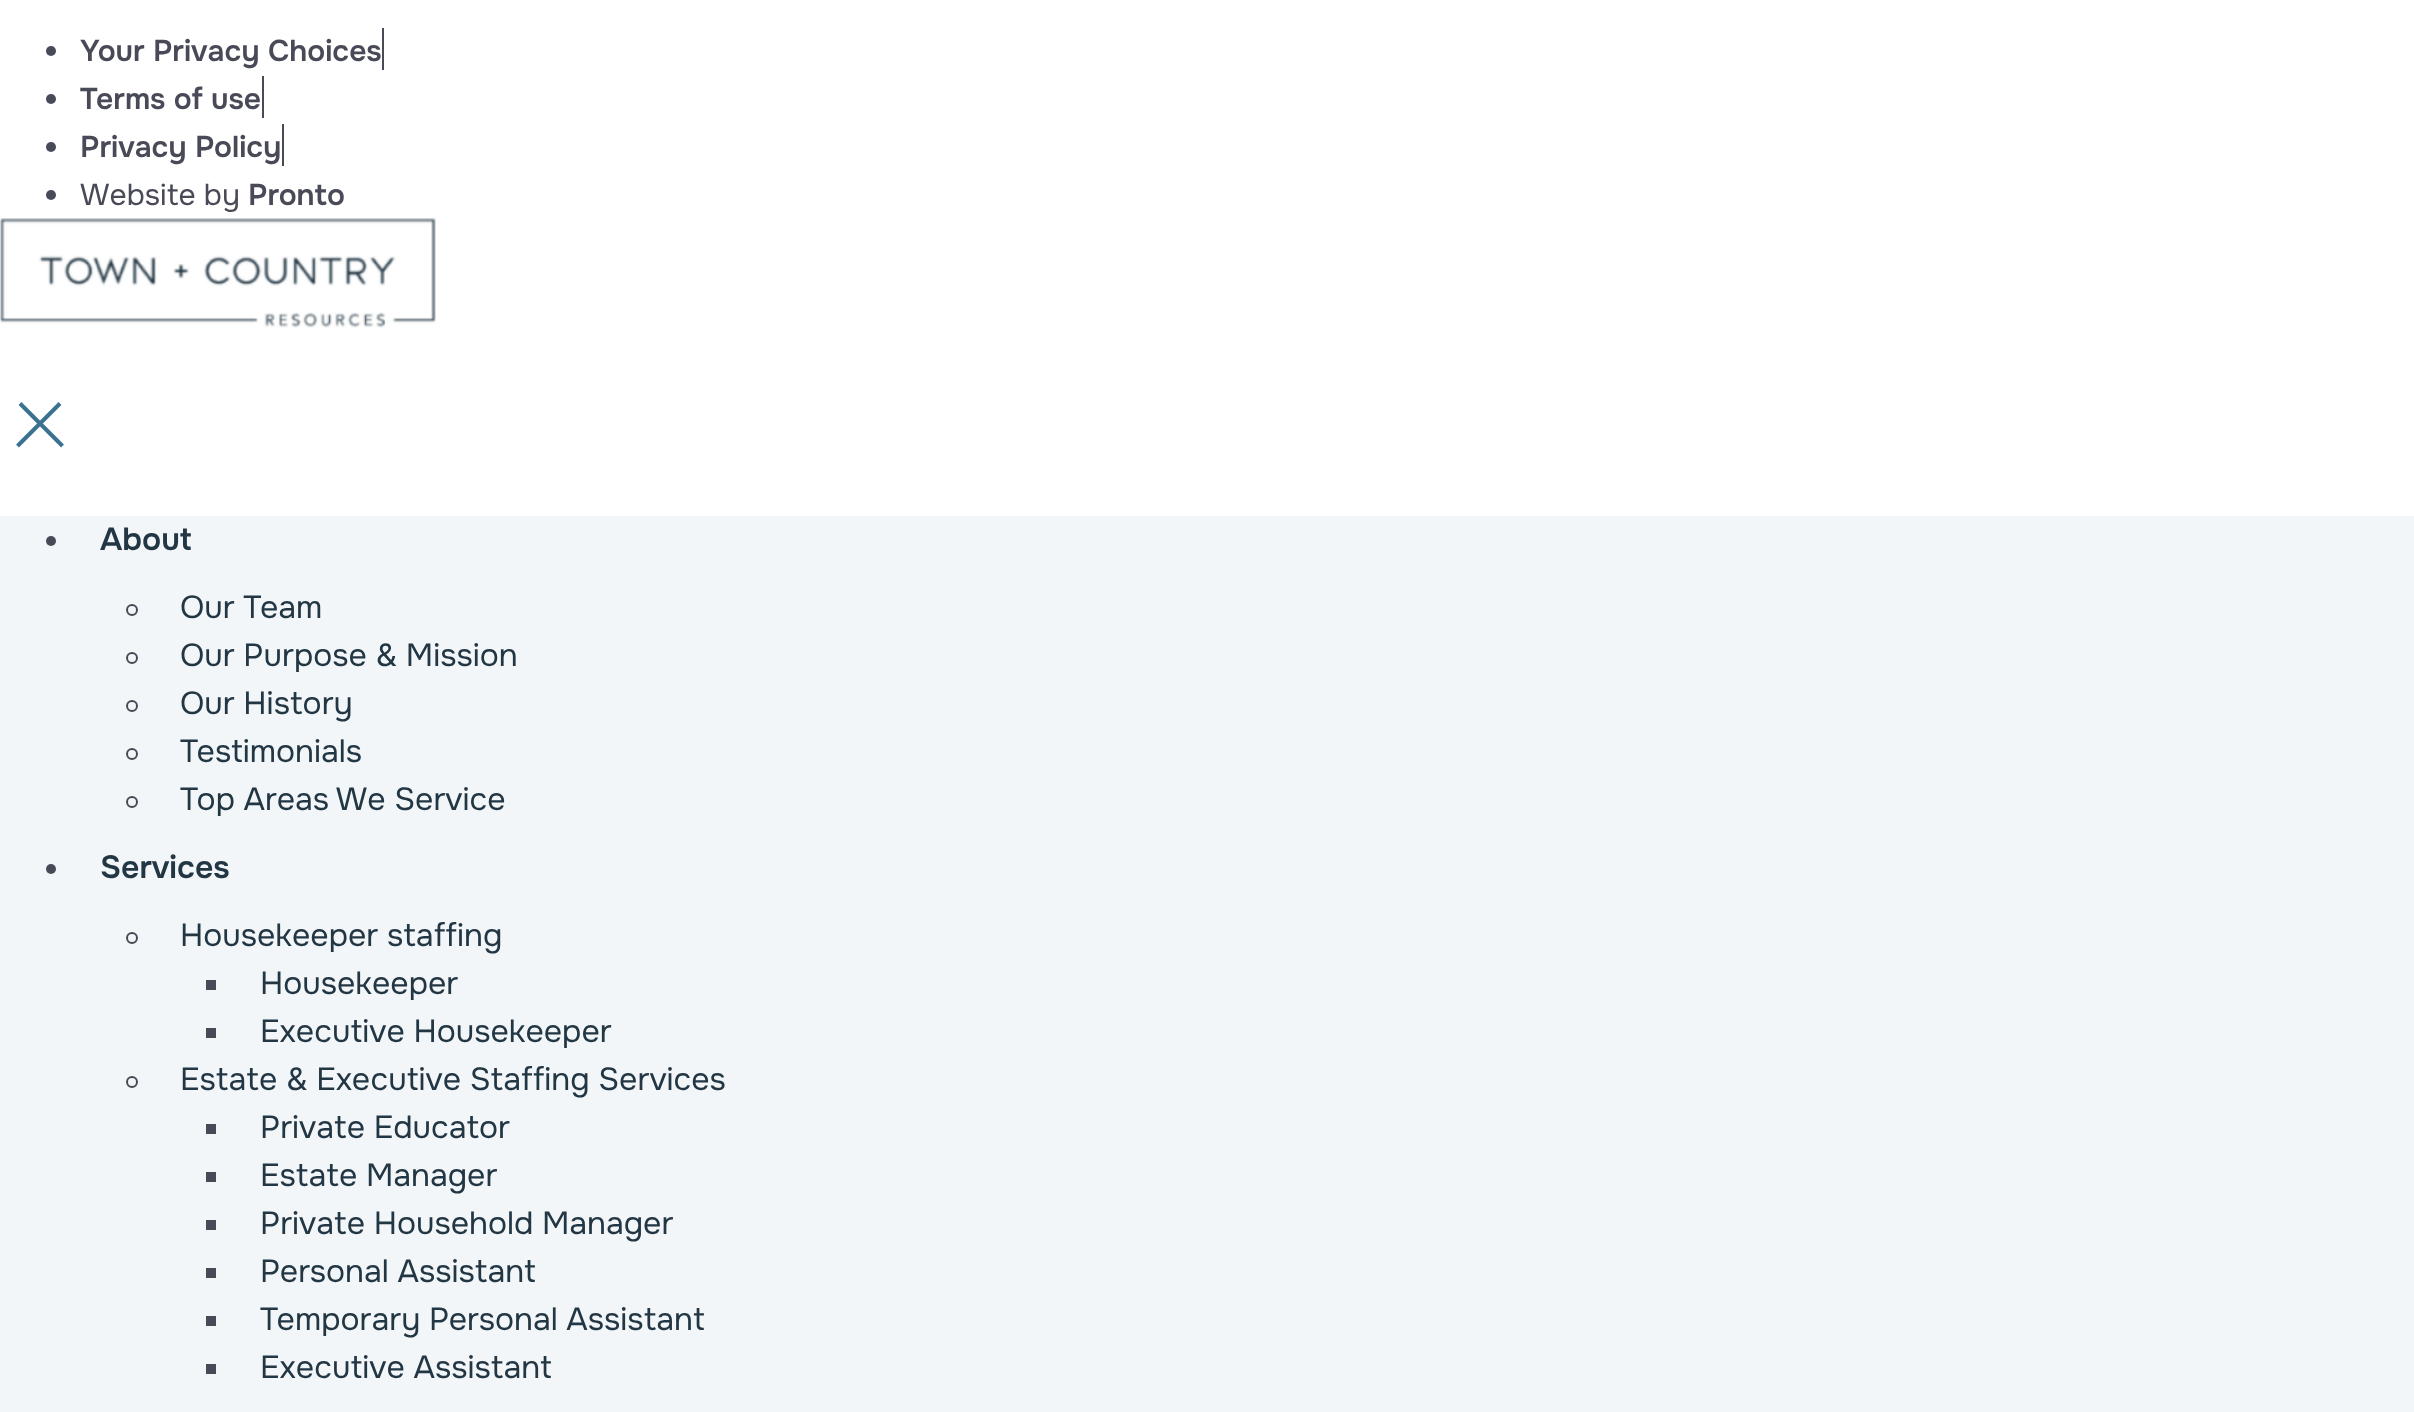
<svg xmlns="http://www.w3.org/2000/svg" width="2414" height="1412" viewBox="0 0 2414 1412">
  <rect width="100%" height="100%" fill="#fff"/>
  <circle cx="51" cy="51" r="5" fill="#494a57"/>
  <path d="M382 28h2v42H382z" fill="#494a57"/>
  <circle cx="51" cy="99" r="5" fill="#494a57"/>
  <path d="M262 76h2v42H262z" fill="#494a57"/>
  <circle cx="51" cy="147" r="5" fill="#494a57"/>
  <path d="M282 124h2v42H282z" fill="#494a57"/>
  <circle cx="51" cy="195" r="5" fill="#494a57"/>
  <image x="0" y="218" width="436" height="110" href="img/1.png"/>
  <path d="M20 403.5L62.5 446M17.5 446L60 403.5" fill="none" stroke="#3b7292" stroke-width="4"/>
  <path d="M0 516h2414v896H0z" fill="#f2f6f8"/>
  <circle cx="51" cy="541" r="5" fill="#494a57"/>
  <circle cx="132" cy="610" r="5" fill="none" stroke="#494a57" stroke-width="2"/>
  <circle cx="132" cy="658" r="5" fill="none" stroke="#494a57" stroke-width="2"/>
  <circle cx="132" cy="706" r="5" fill="none" stroke="#494a57" stroke-width="2"/>
  <circle cx="132" cy="754" r="5" fill="none" stroke="#494a57" stroke-width="2"/>
  <circle cx="132" cy="802" r="5" fill="none" stroke="#494a57" stroke-width="2"/>
  <circle cx="51" cy="869" r="5" fill="#494a57"/>
  <circle cx="132" cy="938" r="5" fill="none" stroke="#494a57" stroke-width="2"/>
  <path d="M206 980h10v10H206z" fill="#494a57"/>
  <path d="M206 1028h10v10H206z" fill="#494a57"/>
  <circle cx="132" cy="1082" r="5" fill="none" stroke="#494a57" stroke-width="2"/>
  <path d="M206 1124h10v10H206z" fill="#494a57"/>
  <path d="M206 1172h10v10H206z" fill="#494a57"/>
  <path d="M206 1220h10v10H206z" fill="#494a57"/>
  <path d="M206 1268h10v10H206z" fill="#494a57"/>
  <path d="M206 1316h10v10H206z" fill="#494a57"/>
  <path d="M206 1364h10v10H206z" fill="#494a57"/>
  <g font-family="Onest" font-size="30" font-weight="600" fill="#494a57">
    <text x="80" y="61">Your Privacy Choices</text>
    <text x="80" y="109">Terms of use</text>
    <text x="80" y="157">Privacy Policy</text>
  </g>
  <text x="80" y="205" font-family="Onest" font-size="30" fill="#494a57">Website by</text>
  <text x="248" y="205" font-family="Onest" font-size="30" font-weight="600" fill="#494a57">Pronto</text>
  <text x="100" y="550" font-family="Onest" font-size="32" font-weight="600" fill="#223644">About</text>
  <g font-family="Onest" font-size="32" fill="#223644">
    <text x="180" y="618">Our Team</text>
    <text x="180" y="666">Our Purpose &amp; Mission</text>
    <text x="180" y="714">Our History</text>
    <text x="180" y="762">Testimonials</text>
    <text x="180" y="810">Top Areas We Service</text>
  </g>
  <text x="100" y="878" font-family="Onest" font-size="32" font-weight="600" fill="#223644">Services</text>
  <g font-family="Onest" font-size="32" fill="#223644">
    <text x="180" y="946">Housekeeper staffing</text>
    <text x="260" y="994">Housekeeper</text>
    <text x="260" y="1042">Executive Housekeeper</text>
    <text x="180" y="1090">Estate &amp; Executive Staffing Services</text>
    <text x="260" y="1138">Private Educator</text>
    <text x="260" y="1186">Estate Manager</text>
    <text x="260" y="1234">Private Household Manager</text>
    <text x="260" y="1282">Personal Assistant</text>
    <text x="260" y="1330">Temporary Personal Assistant</text>
    <text x="260" y="1378">Executive Assistant</text>
  </g>
</svg>
